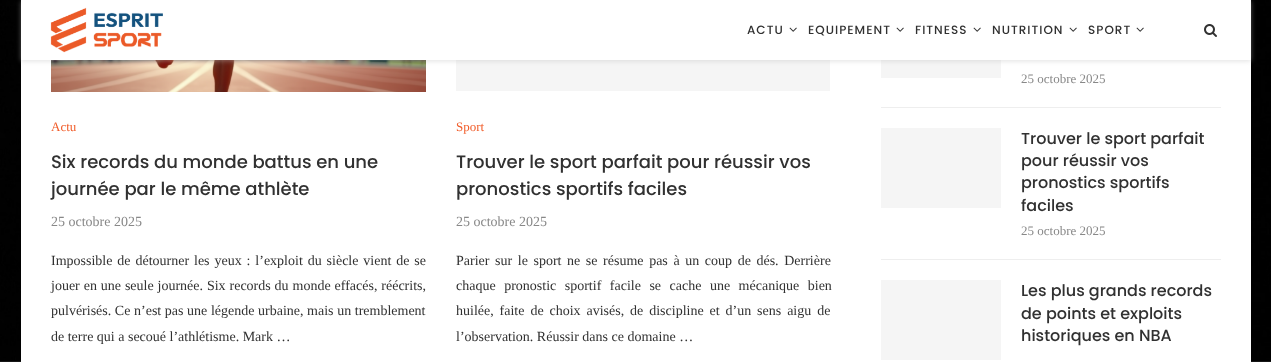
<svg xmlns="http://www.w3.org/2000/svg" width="1271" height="362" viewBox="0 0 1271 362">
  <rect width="100%" height="100%" fill="#fff"/>
  <image x="0" y="0" width="1271" height="362" href="img/1.png"/>
  <path d="M21 60h1230v302H21z" fill="#fff"/>
  <image x="51" y="60" width="375" height="32" href="img/5.png"/>
  <path d="M456 60h374v31H456z" fill="#f5f5f5"/>
  <path d="M881 60h120v18H881z" fill="#f5f5f5"/>
  <path d="M21 1h1230v60H21z" fill="#bebebe75" filter="blur(2.5px)"/>
  <path d="M21 0h1230v60H21z" fill="#fff"/>
  <image x="50" y="7" width="113" height="46" href="img/2.png"/>
  <image x="789" y="27" width="8" height="5" href="img/3.png"/>
  <image x="896" y="27" width="8" height="5" href="img/3.png"/>
  <image x="973" y="27" width="8" height="5" href="img/3.png"/>
  <image x="1069" y="27" width="8" height="5" href="img/3.png"/>
  <image x="1136" y="27" width="8" height="5" href="img/3.png"/>
  <image x="1204" y="24" width="13" height="13" href="img/4.png"/>
  <path d="M881 107h340v1H881z" fill="#eee"/>
  <path d="M881 259h340v1H881z" fill="#eee"/>
  <path d="M881 128h120v80H881z" fill="#f5f5f5"/>
  <path d="M881 280h120v80H881z" fill="#f5f5f5"/>
  <g font-family="Poppins" font-size="12" font-weight="500" letter-spacing="1" fill="#313131">
    <text x="747" y="34">ACTU</text>
    <text x="808" y="34">EQUIPEMENT</text>
    <text x="915" y="34">FITNESS</text>
    <text x="992" y="34">NUTRITION</text>
    <text x="1088" y="34">SPORT</text>
  </g>
  <text x="51" y="131" font-family="Liberation Serif" font-size="13" fill="#f15c29">Actu</text>
  <g font-family="Poppins" font-size="18" font-weight="500" fill="#313131">
    <text x="51" y="168">Six records du monde battus en une</text>
    <text x="51" y="195">journée par le même athlète</text>
  </g>
  <text x="51" y="226" font-family="Liberation Serif" font-size="14" fill="#888">25 octobre 2025</text>
  <g font-family="Liberation Serif" font-size="14" fill="#313131">
    <text x="51" y="265" word-spacing="1.4">Impossible de détourner les yeux : l’exploit du siècle vient de se</text>
    <text x="51" y="290" word-spacing="0.4">jouer en une seule journée. Six records du monde effacés, réécrits,</text>
    <text x="51" y="315" word-spacing="0.1">pulvérisés. Ce n’est pas une légende urbaine, mais un tremblement</text>
    <text x="51" y="341">de terre qui a secoué l’athlétisme. Mark …</text>
  </g>
  <text x="456" y="131" font-family="Liberation Serif" font-size="13" fill="#f15c29">Sport</text>
  <g font-family="Poppins" font-size="18" font-weight="500" fill="#313131">
    <text x="456" y="168">Trouver le sport parfait pour réussir vos</text>
    <text x="456" y="195">pronostics sportifs faciles</text>
  </g>
  <text x="456" y="226" font-family="Liberation Serif" font-size="14" fill="#888">25 octobre 2025</text>
  <g font-family="Liberation Serif" font-size="14" fill="#313131">
    <text x="456" y="265" word-spacing="2.1">Parier sur le sport ne se résume pas à un coup de dés. Derrière</text>
    <text x="456" y="290" word-spacing="5">chaque pronostic sportif facile se cache une mécanique bien</text>
    <text x="456" y="315" word-spacing="2.4">huilée, faite de choix avisés, de discipline et d’un sens aigu de</text>
    <text x="456" y="341">l’observation. Réussir dans ce domaine …</text>
  </g>
  <text x="1021" y="83" font-family="Liberation Serif" font-size="13" fill="#888">25 octobre 2025</text>
  <g font-family="Poppins" font-size="16" font-weight="500" fill="#313131">
    <text x="1021" y="144">Trouver le sport parfait</text>
    <text x="1021" y="166">pour réussir vos</text>
    <text x="1021" y="188">pronostics sportifs</text>
    <text x="1021" y="211">faciles</text>
  </g>
  <text x="1021" y="235" font-family="Liberation Serif" font-size="13" fill="#888">25 octobre 2025</text>
  <g font-family="Poppins" font-size="16" font-weight="500" fill="#313131">
    <text x="1021" y="296">Les plus grands records</text>
    <text x="1021" y="319">de points et exploits</text>
    <text x="1021" y="341">historiques en NBA</text>
  </g>
</svg>
